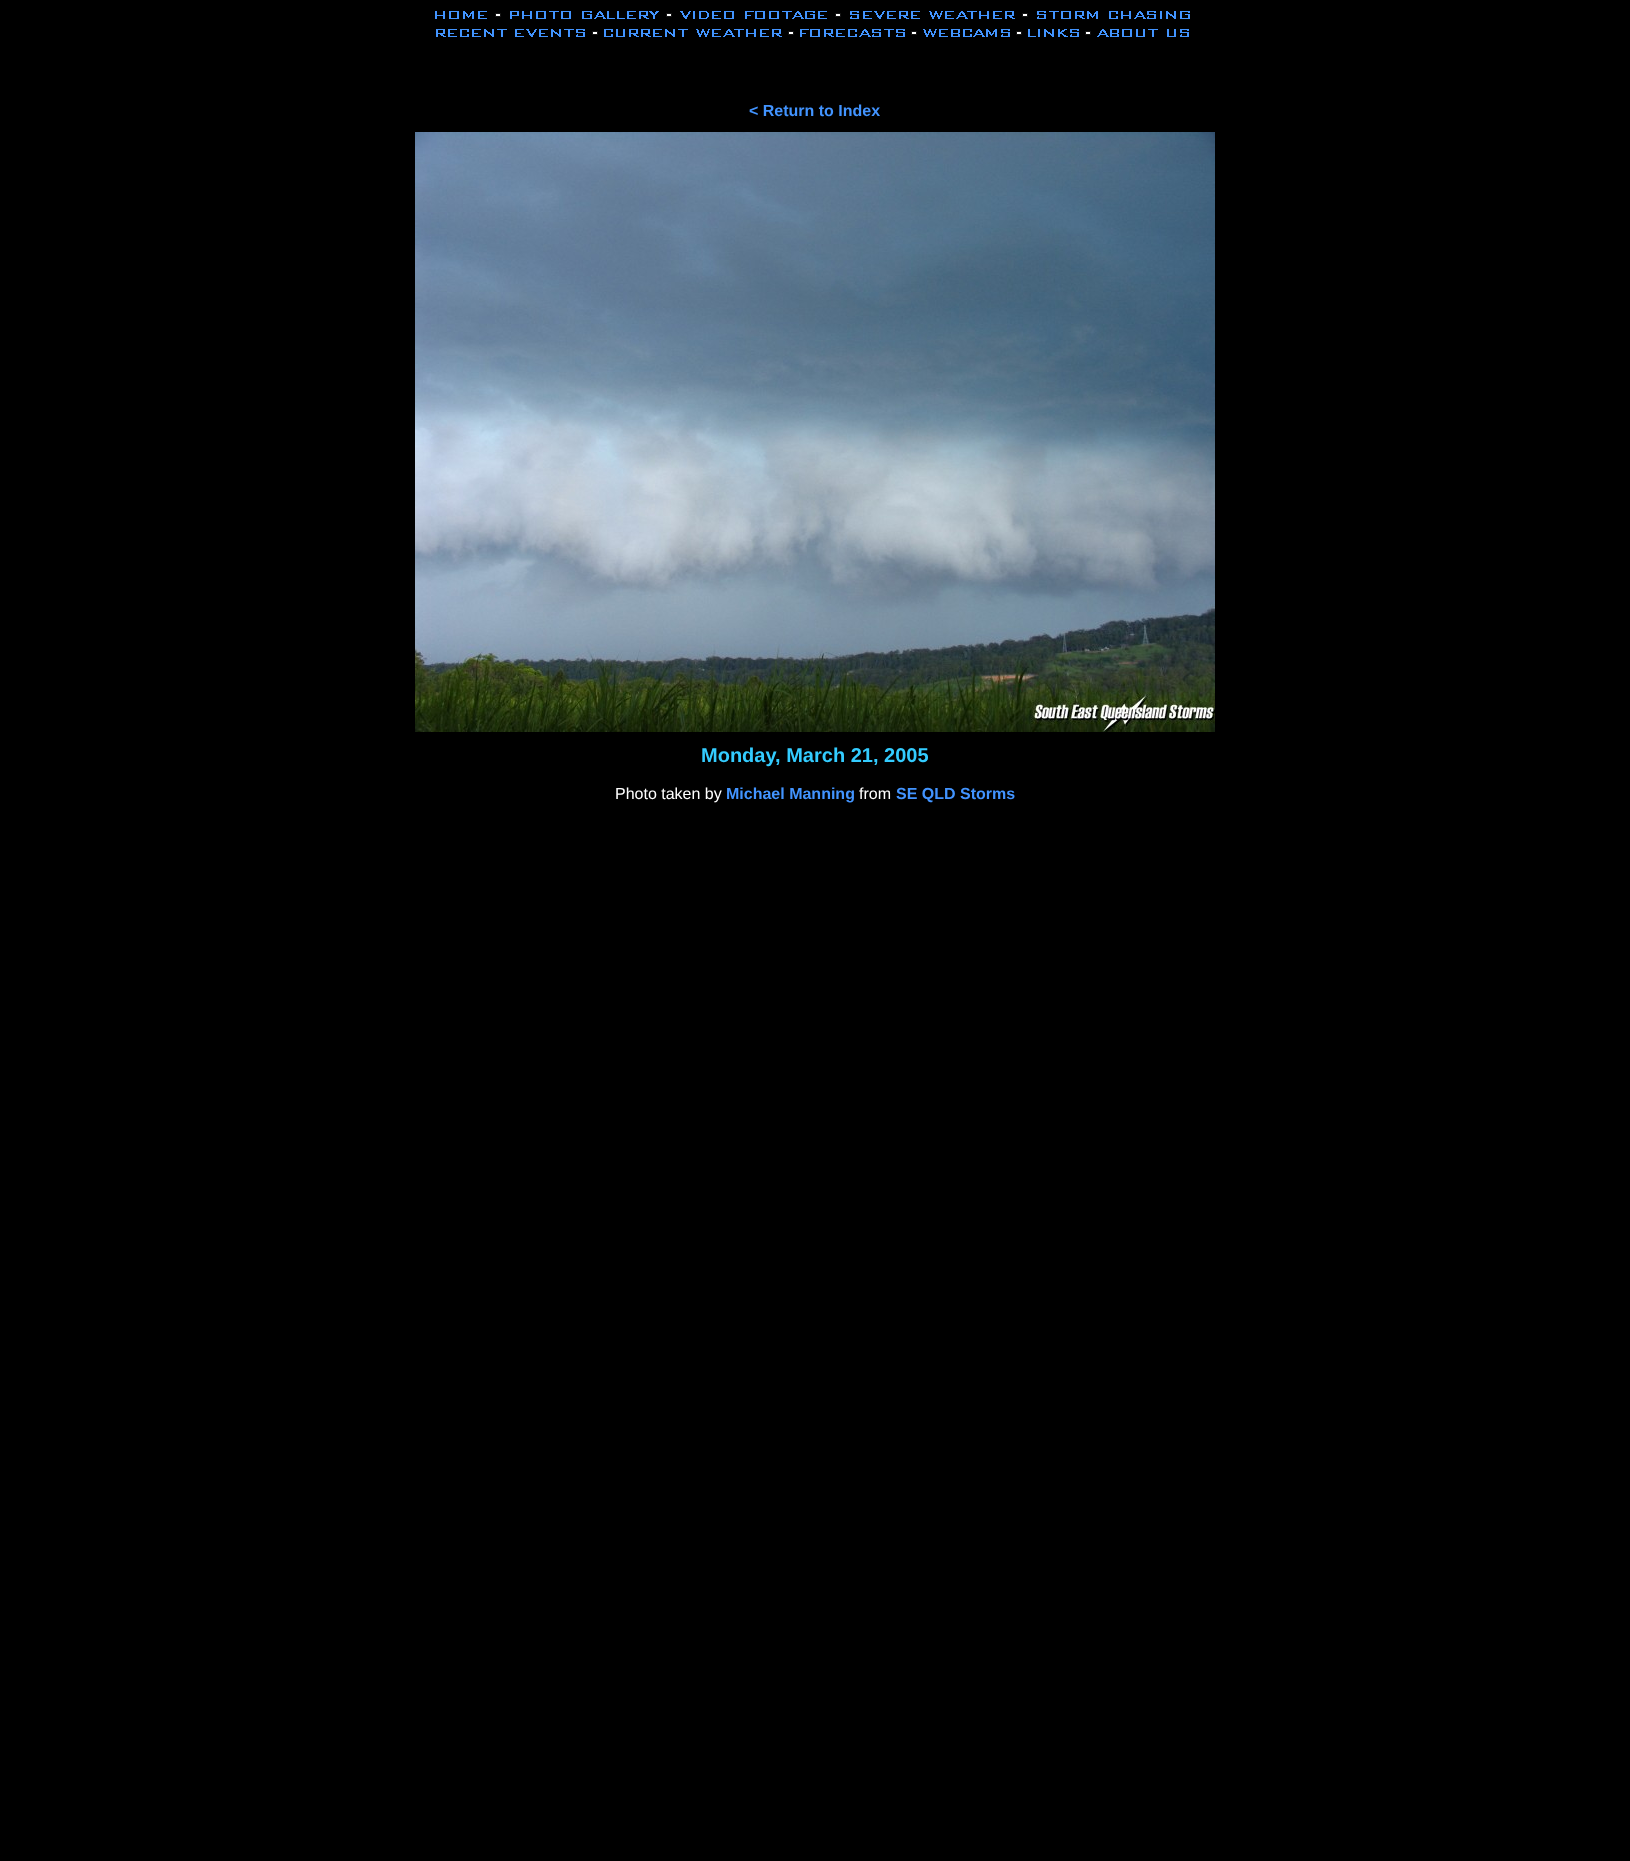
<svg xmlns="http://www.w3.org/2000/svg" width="1630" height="1861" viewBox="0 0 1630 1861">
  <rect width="100%" height="100%" fill="#000"/>
  <image x="435" y="11" width="755" height="26" href="img/1.png"/>
  <image x="415" y="132" width="800" height="600" href="img/2.png"/>
  <text x="749" y="116" font-family="Liberation Sans" font-size="16" font-weight="bold" fill="#4294ff">&lt; Return to Index</text>
  <text x="701" y="762" font-family="Liberation Sans" font-size="20" font-weight="bold" fill="#3cf">Monday, March 21, 2005</text>
  <text x="615" y="799" font-family="Liberation Sans" font-size="16" fill="#fff">Photo taken by</text>
  <text x="726" y="799" font-family="Liberation Sans" font-size="16" font-weight="bold" fill="#4294ff">Michael Manning</text>
  <text x="859" y="799" font-family="Liberation Sans" font-size="16" fill="#fff">from</text>
  <text x="896" y="799" font-family="Liberation Sans" font-size="16" font-weight="bold" fill="#4294ff">SE QLD Storms</text>
</svg>
